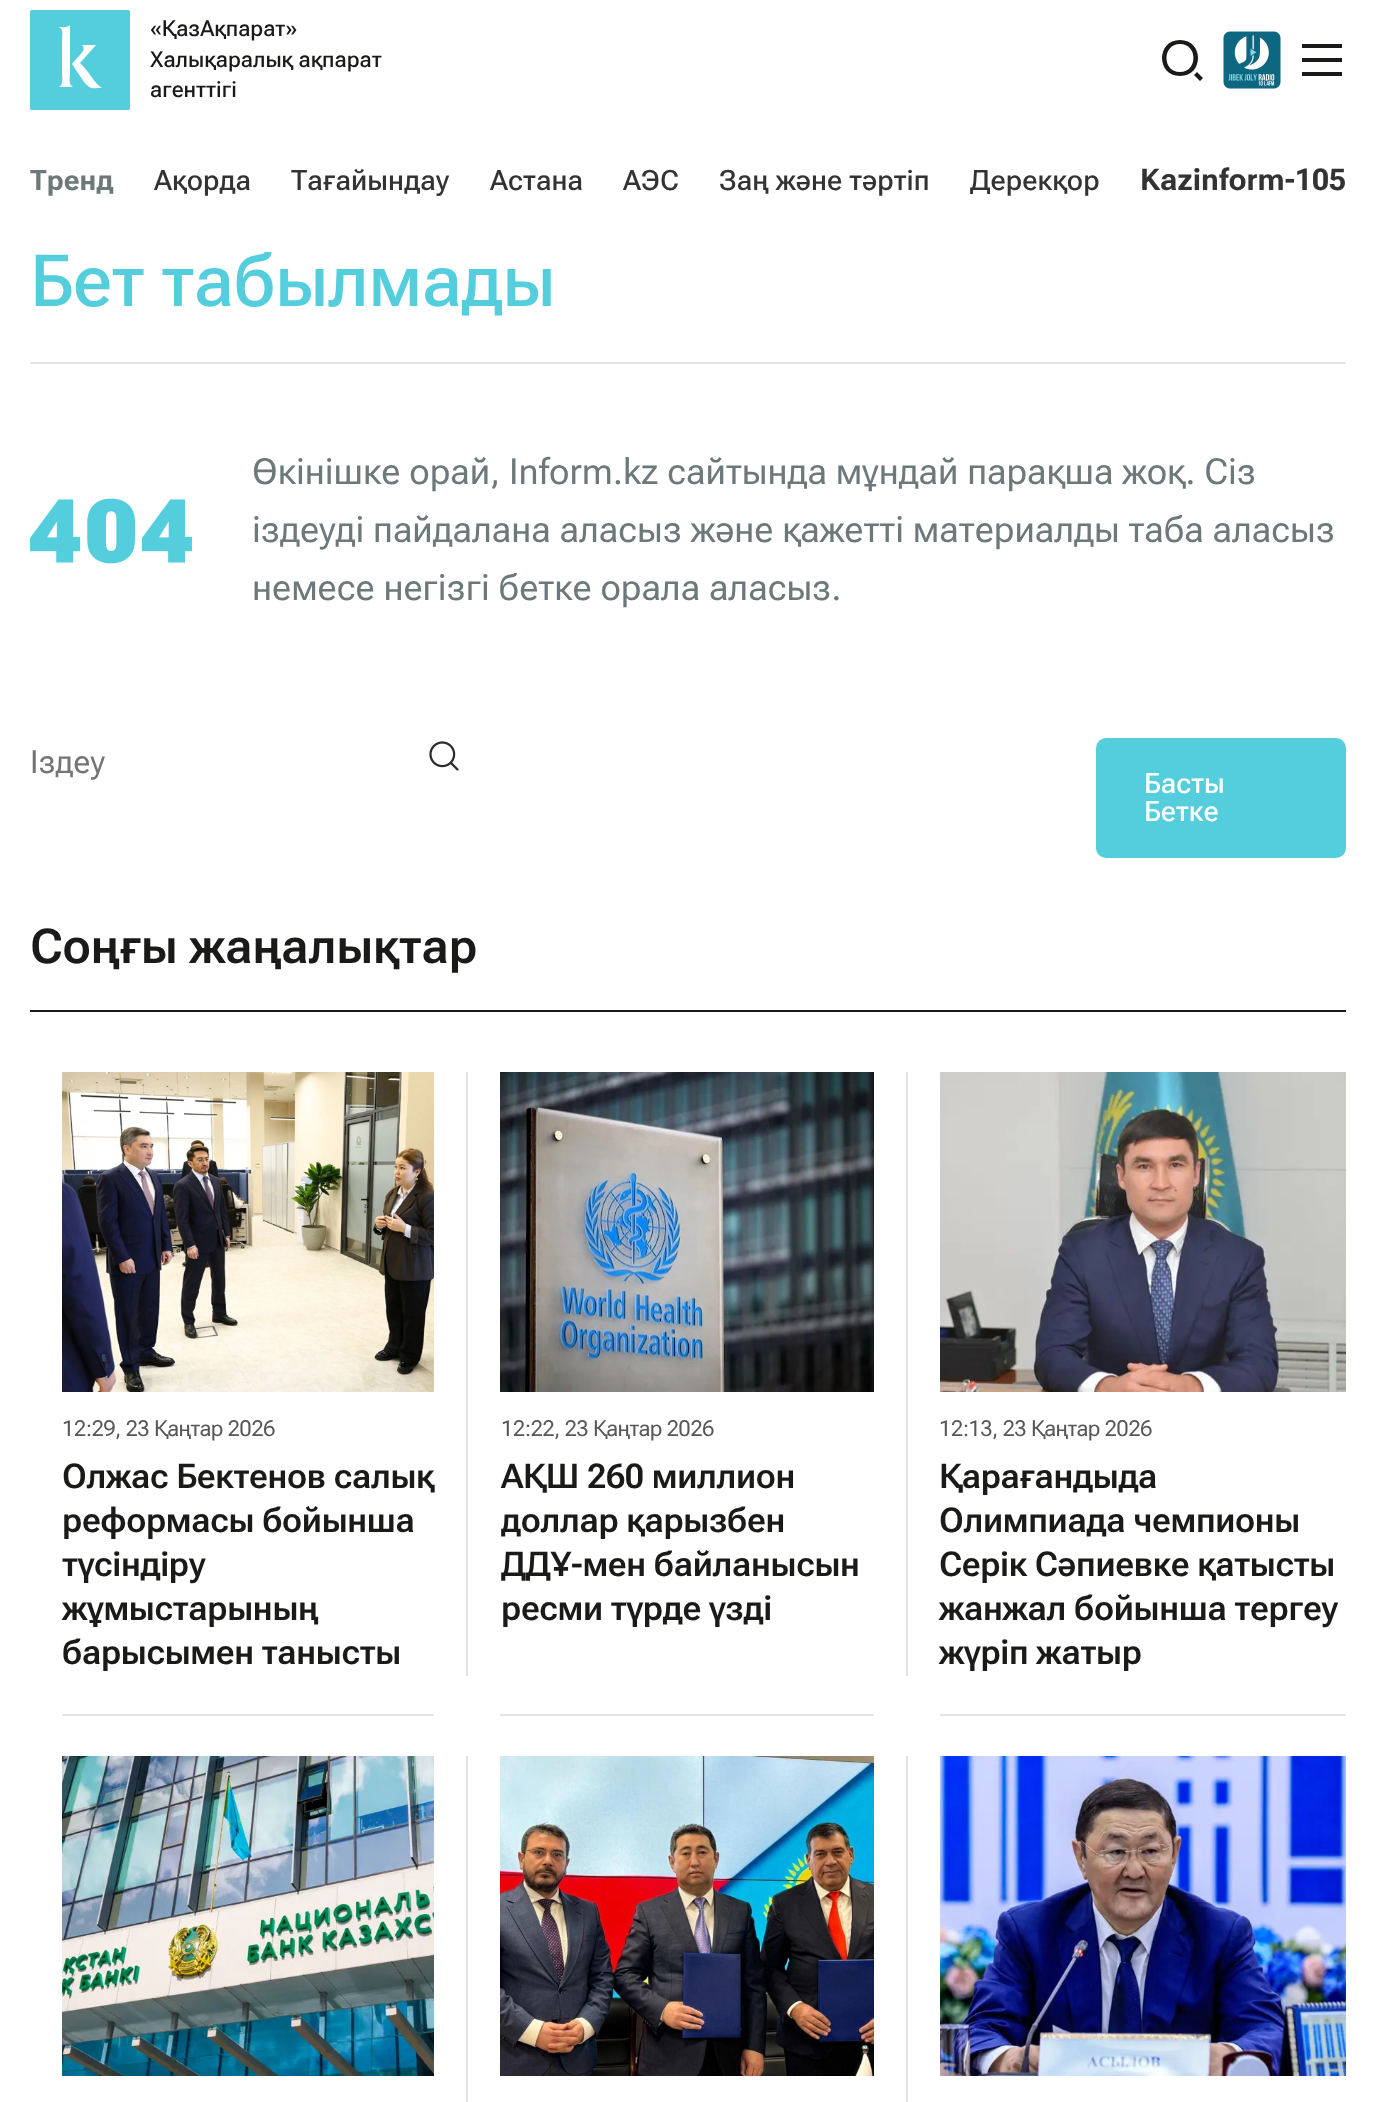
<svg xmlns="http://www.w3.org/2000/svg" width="1376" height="2102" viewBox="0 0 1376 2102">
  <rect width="100%" height="100%" fill="#fff"/>
  <rect x="30" y="10" width="100" height="100" rx="1.5" fill="#54cedd"/>
  <path d="M72 64L84 82C91 90 92 88 102 88C93 82 89 71 80 63L96 45H82C87 49 80 55 77 58Z" fill="#fff" fill-rule="evenodd"/>
  <path d="M59 27C64 30 62 36 62 41V73C62 77 64 84 59 87H73C68 84 70 76 70 72V25C67 28 63 27 59 27Z" fill="#fff" fill-rule="evenodd"/>
  <path d="M1180 40C1204 40 1204 76 1180 76C1156 76 1156 40 1180 40ZM1180 72C1198 72 1198 44 1180 44C1162 44 1162 72 1180 72ZM1197 72L1203 78L1200 81L1194 75Z" fill="#1a1a18"/>
  <image x="1223" y="31" width="58" height="58" href="img/1.png"/>
  <path d="M1302 44H1342V48H1302ZM1302 58H1342V62H1302ZM1302 72H1342V76H1302Z" fill="#1a1a18"/>
  <path d="M30 362h1316v2H30z" fill="#e4e4e4"/>
  <image x="30" y="498" width="162" height="66" href="img/2.png"/>
  <image x="429" y="741" width="30" height="30" href="img/3.png"/>
  <rect x="1096" y="738" width="250" height="120" rx="10" fill="#54cedd"/>
  <path d="M30 1010h1316v2H30z" fill="#1a1a18"/>
  <path d="M466 1072h2v604H466z" fill="#e4e4e4"/>
  <path d="M62 1714h372v2H62z" fill="#e4e4e4"/>
  <image x="62" y="1072" width="372" height="320" href="img/4.png"/>
  <path d="M906 1072h2v604H906z" fill="#e4e4e4"/>
  <path d="M500 1714h374v2H500z" fill="#e4e4e4"/>
  <image x="500" y="1072" width="374" height="320" href="img/5.png"/>
  <path d="M940 1714h406v2H940z" fill="#e4e4e4"/>
  <image x="940" y="1072" width="406" height="320" href="img/6.png"/>
  <path d="M466 1756h2v346H466z" fill="#e4e4e4"/>
  <image x="62" y="1756" width="372" height="320" href="img/7.png"/>
  <path d="M906 1756h2v346H906z" fill="#e4e4e4"/>
  <image x="500" y="1756" width="374" height="320" href="img/8.png"/>
  <image x="940" y="1756" width="406" height="320" href="img/9.png"/>
  <g font-family="Roboto Flex" font-size="22" font-weight="500" fill="#1a1a18">
    <text x="150" y="36">«ҚазАқпарат»</text>
    <text x="150" y="67">Халықаралық ақпарат</text>
    <text x="150" y="97">агенттігі</text>
  </g>
  <text x="30" y="190" font-family="Roboto Flex" font-size="28" font-weight="bold" letter-spacing="0.1" fill="#6d787a">Тренд</text>
  <g font-family="Roboto Flex" font-size="28" font-weight="500" letter-spacing="0.1" fill="#333">
    <text x="154" y="190">Ақорда</text>
    <text x="291" y="190">Тағайындау</text>
    <text x="490" y="190">Астана</text>
    <text x="623" y="190">АЭС</text>
    <text x="719" y="190">Заң және тәртіп</text>
    <text x="970" y="190">Дерекқор</text>
  </g>
  <text x="1140" y="190" font-family="Roboto Flex" font-size="30" font-weight="bold" letter-spacing="0.1" fill="#333">Kazinform-105</text>
  <text x="30" y="306" font-family="Roboto Flex" font-size="72" font-weight="500" letter-spacing="-0.3" fill="#54cedd">Бет табылмады</text>
  <g font-family="Roboto Flex" font-size="36" fill="#6d787a">
    <text x="252" y="484">Өкінішке орай, Inform.kz сайтында мұндай парақша жоқ. Сіз</text>
    <text x="252" y="542">іздеуді пайдалана аласыз және қажетті материалды таба аласыз</text>
    <text x="252" y="600">немесе негізгі бетке орала аласыз.</text>
  </g>
  <text x="30" y="773" font-family="Roboto Flex" font-size="32" fill="#757575">Іздеу</text>
  <g font-family="Roboto Flex" font-size="28" font-weight="500" fill="#fff">
    <text x="1144" y="793">Басты</text>
    <text x="1144" y="821">Бетке</text>
  </g>
  <text x="30" y="963" font-family="Roboto Flex" font-size="48" font-weight="600" fill="#1a1a18">Соңғы жаңалықтар</text>
  <text x="62" y="1436" font-family="Roboto Flex" font-size="22" letter-spacing="-0.6" fill="#575757">12:29, 23 Қаңтар 2026</text>
  <g font-family="Roboto Flex" font-size="34" font-weight="600" letter-spacing="-0.3" fill="#1a1a18">
    <text x="62" y="1488">Олжас Бектенов салық</text>
    <text x="62" y="1532">реформасы бойынша</text>
    <text x="62" y="1576">түсіндіру</text>
    <text x="62" y="1620">жұмыстарының</text>
    <text x="62" y="1664">барысымен танысты</text>
  </g>
  <text x="501" y="1436" font-family="Roboto Flex" font-size="22" letter-spacing="-0.6" fill="#575757">12:22, 23 Қаңтар 2026</text>
  <g font-family="Roboto Flex" font-size="34" font-weight="600" letter-spacing="-0.3" fill="#1a1a18">
    <text x="501" y="1488">АҚШ 260 миллион</text>
    <text x="501" y="1532">доллар қарызбен</text>
    <text x="501" y="1576">ДДҰ-мен байланысын</text>
    <text x="501" y="1620">ресми түрде үзді</text>
  </g>
  <text x="939" y="1436" font-family="Roboto Flex" font-size="22" letter-spacing="-0.6" fill="#575757">12:13, 23 Қаңтар 2026</text>
  <g font-family="Roboto Flex" font-size="34" font-weight="600" letter-spacing="-0.3" fill="#1a1a18">
    <text x="939" y="1488">Қарағандыда</text>
    <text x="939" y="1532">Олимпиада чемпионы</text>
    <text x="939" y="1576">Серік Сәпиевке қатысты</text>
    <text x="939" y="1620">жанжал бойынша тергеу</text>
    <text x="939" y="1664">жүріп жатыр</text>
  </g>
</svg>
